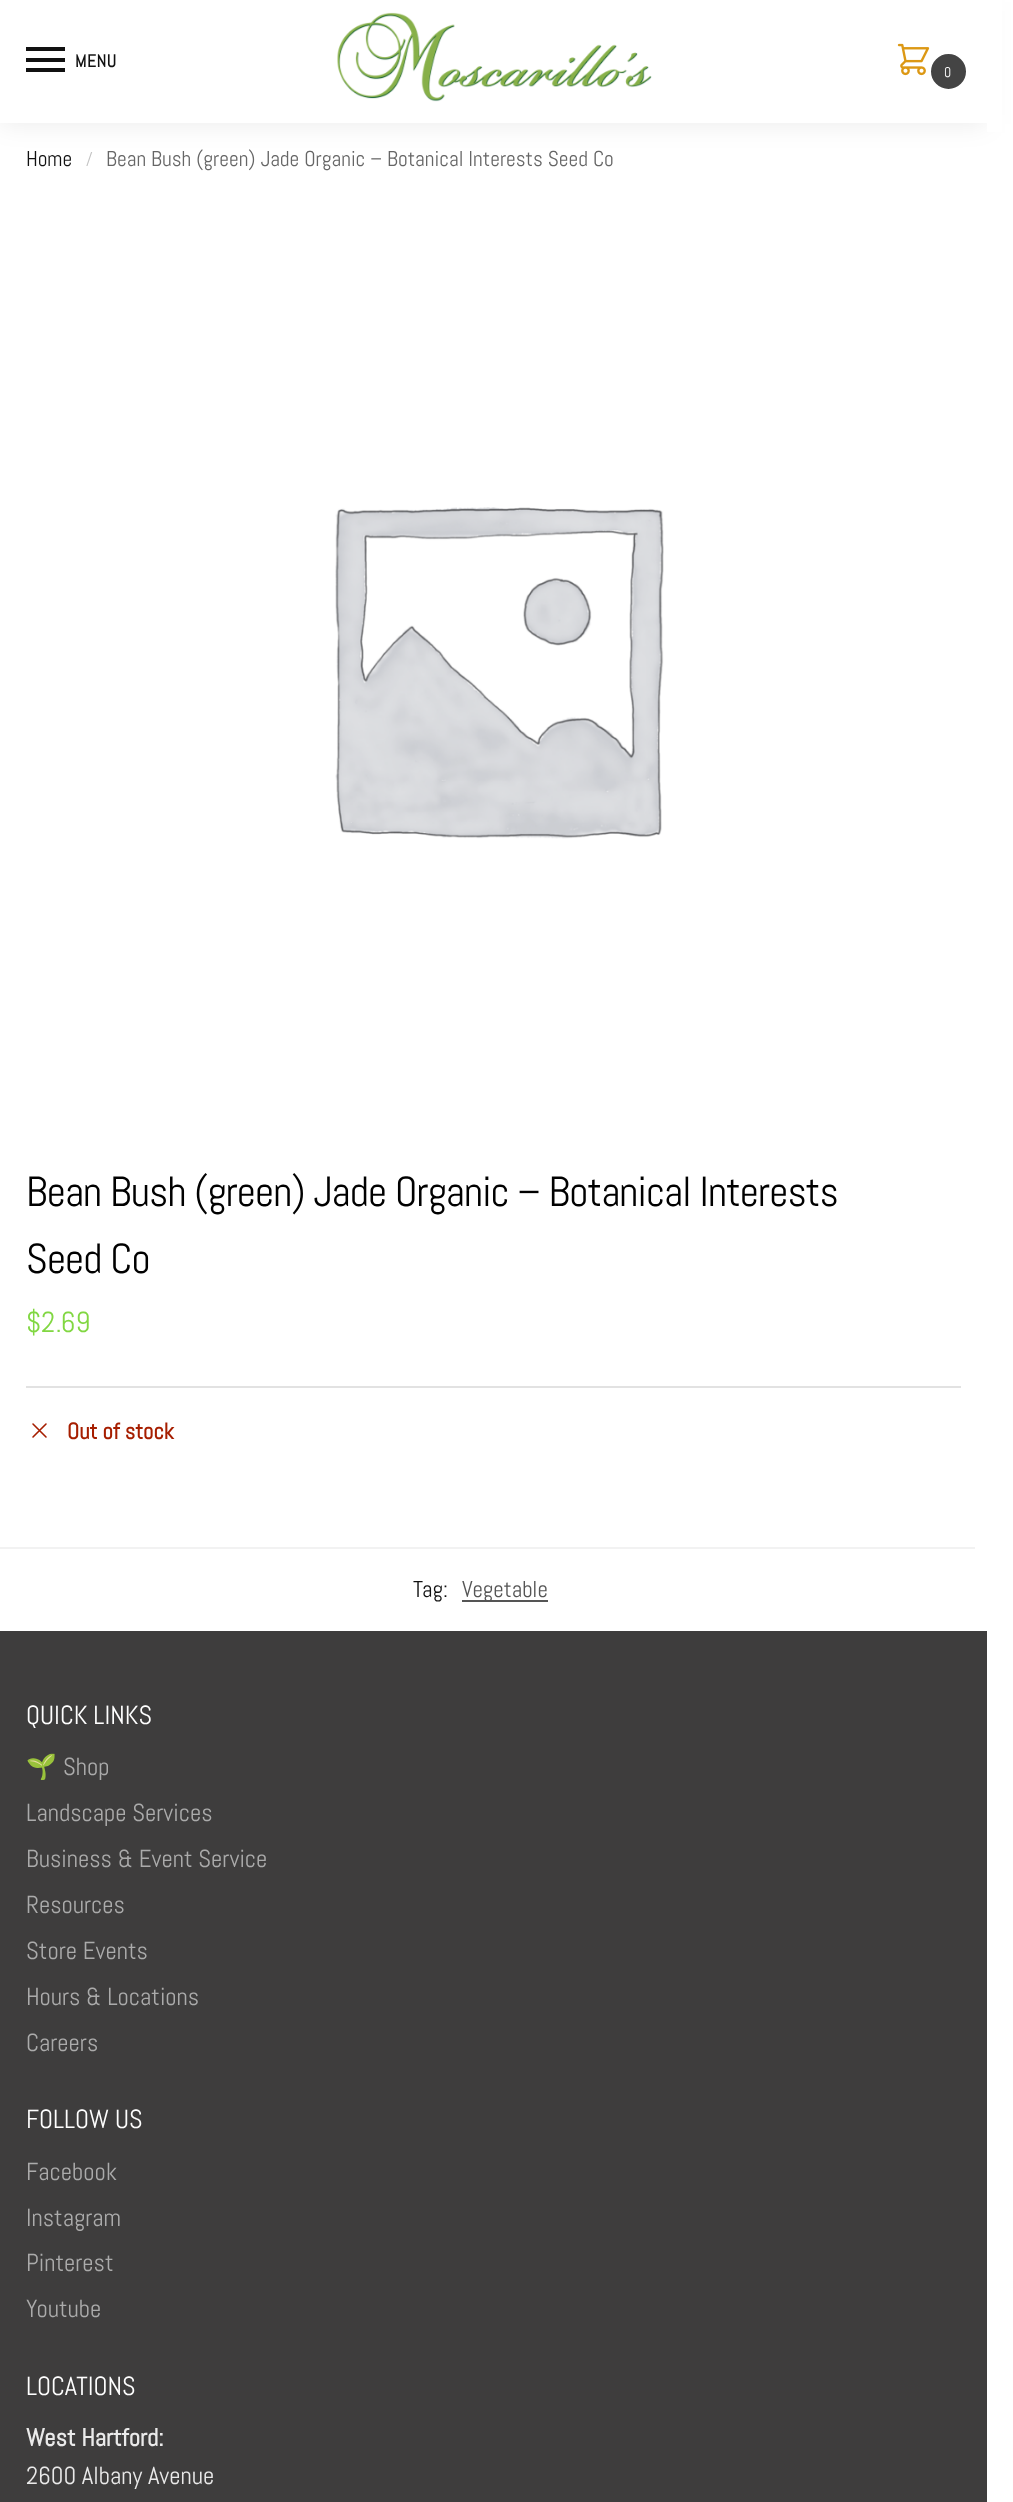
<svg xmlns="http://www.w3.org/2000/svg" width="1013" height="2502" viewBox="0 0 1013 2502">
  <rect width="100%" height="100%" fill="#fff"/>
  <path d="M0 2h987v122H0z" fill="#00000014" filter="blur(13px)"/>
  <path d="M0 0h987v123H0z" fill="#fff"/>
  <path d="M26 47h39v4H26z" fill="#111"/>
  <path d="M26 58h39v4H26z" fill="#111"/>
  <path d="M26 68h39v4H26z" fill="#111"/>
  <image x="337" y="12" width="315" height="90" href="img/1.png"/>
  <image x="897" y="43" width="33" height="33" href="img/2.png"/>
  <circle cx="948.5" cy="71.5" r="16.5" fill="#444" stroke="#444" stroke-width="2"/>
  <path d="M987 0h15v132H987z" fill="#fff"/>
  <image x="335" y="507" width="329" height="332" href="img/3.png"/>
  <path d="M26 1386h935v2H26z" fill="#e2e2e2"/>
  <path d="M33 1437L46 1424M33 1424L46 1437" fill="none" stroke="#a61e00" stroke-width="1.6" stroke-linecap="round" stroke-linejoin="round"/>
  <path d="M0 1547h975v2H0z" fill="#f2f2f2"/>
  <path d="M462 1600h86v2H462z" fill="#555"/>
  <path d="M0 1631h987v871H0z" fill="#3e3d3d"/>
  <text x="75" y="67" font-family="Abel" font-size="17.5" font-weight="bold" letter-spacing="0.5" fill="#111">MENU</text>
  <text x="944" y="77" font-family="Abel" font-size="14" letter-spacing="2" fill="#fff">0</text>
  <text x="26" y="166" font-family="Abel" font-size="21.4" fill="#111">Home</text>
  <text x="86" y="165" font-family="Abel" font-size="17" fill="#c2c2c2">/</text>
  <text x="106" y="166" font-family="Abel" font-size="21.4" fill="#666">Bean Bush (green) Jade Organic – Botanical Interests Seed Co</text>
  <g font-family="Abel" font-size="42" letter-spacing="-0.88" fill="#000">
    <text x="26" y="1206">Bean Bush (green) Jade Organic – Botanical Interests</text>
    <text x="26" y="1273">Seed Co</text>
  </g>
  <text x="26" y="1332" font-family="Abel" font-size="29" fill="#81d742">$2.69</text>
  <text x="67" y="1439" font-family="Abel" font-size="22.75" font-weight="bold" fill="#a61e00">Out of stock</text>
  <text x="413" y="1597" font-family="Abel" font-size="23" fill="#111">Tag:</text>
  <text x="462" y="1597" font-family="Abel" font-size="23" fill="#555">Vegetable</text>
  <text x="26" y="1724" font-family="Abel" font-size="26.25" fill="#fff">QUICK LINKS</text>
  <text x="26" y="1775" font-family="Noto Color Emoji" font-size="24.75" fill="#ababab">🌱</text>
  <g font-family="Abel" font-size="24.75" fill="#ababab">
    <text x="63" y="1775">Shop</text>
    <text x="26" y="1821">Landscape Services</text>
    <text x="26" y="1867">Business &amp; Event Service</text>
    <text x="26" y="1913">Resources</text>
    <text x="26" y="1959">Store Events</text>
    <text x="26" y="2005">Hours &amp; Locations</text>
    <text x="26" y="2051">Careers</text>
  </g>
  <text x="26" y="2128" font-family="Abel" font-size="26.25" fill="#fff">FOLLOW US</text>
  <g font-family="Abel" font-size="24.75" fill="#ababab">
    <text x="26" y="2180">Facebook</text>
    <text x="26" y="2226">Instagram</text>
    <text x="26" y="2271">Pinterest</text>
    <text x="26" y="2317">Youtube</text>
  </g>
  <text x="26" y="2395" font-family="Abel" font-size="26.25" fill="#fff">LOCATIONS</text>
  <text x="26" y="2446" font-family="Abel" font-size="24.75" font-weight="bold" fill="#eaeaea">West Hartford:</text>
  <text x="26" y="2484" font-family="Abel" font-size="24.75" fill="#eaeaea">2600 Albany Avenue</text>
</svg>
